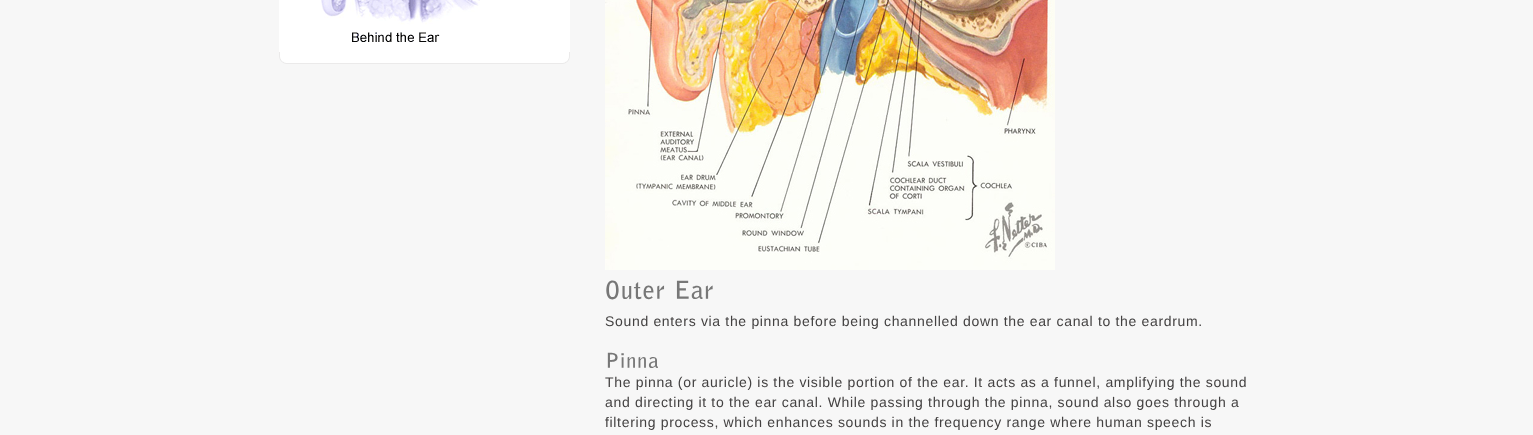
<svg xmlns="http://www.w3.org/2000/svg" width="1533" height="435" viewBox="0 0 1533 435">
  <rect width="100%" height="100%" fill="#f7f7f7"/>
  <path d="M279 0h291v52H279z" fill="#fff"/>
  <image x="279" y="52" width="291" height="12" href="img/1.png"/>
  <image x="321" y="0" width="159" height="42" href="img/2.png"/>
  <image x="605" y="0" width="450" height="270" href="img/3.png"/>
  <image x="606" y="280" width="59" height="20" href="img/4.png"/>
  <image x="676" y="280" width="37" height="19" href="img/5.png"/>
  <image x="607" y="352" width="51" height="16" href="img/6.png"/>
  <g font-family="Liberation Sans" font-size="14" letter-spacing="0.67" fill="#434141">
    <text x="605" y="326">Sound enters via the pinna before being channelled down the ear canal to the eardrum.</text>
    <text x="605" y="387">The pinna (or auricle) is the visible portion of the ear. It acts as a funnel, amplifying the sound</text>
    <text x="605" y="407">and directing it to the ear canal. While passing through the pinna, sound also goes through a</text>
    <text x="605" y="427">filtering process, which enhances sounds in the frequency range where human speech is</text>
  </g>
</svg>
